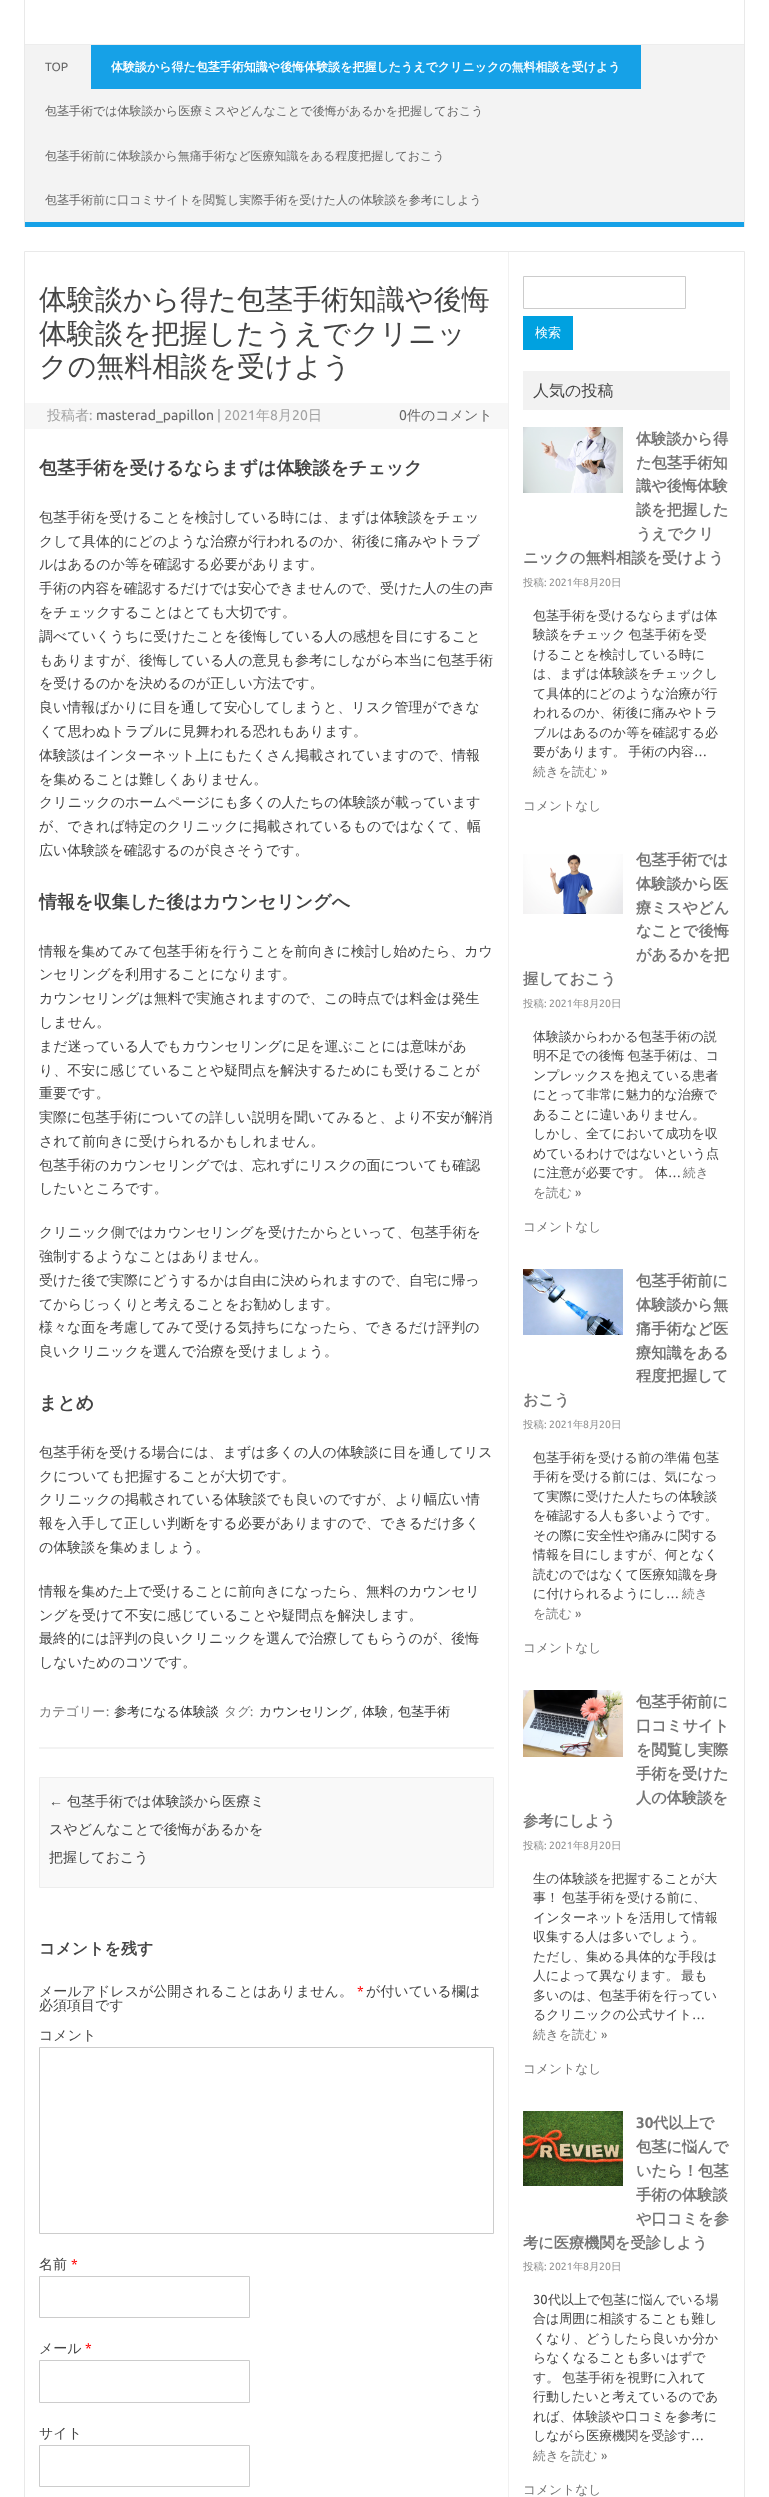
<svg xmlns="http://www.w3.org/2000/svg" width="769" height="2497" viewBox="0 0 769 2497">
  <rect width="100%" height="100%" fill="#fff"/>
  <path d="M744 0h1v227H744z" fill="#e9e9e9"/>
  <path d="M24 0h1v227H24z" fill="#e9e9e9"/>
  <path d="M25 45h719v177H25z" fill="#f3f3f3"/>
  <path d="M25 44h719v1H25z" fill="#ededed"/>
  <path d="M25 222h719v5H25z" fill="#16a1e7"/>
  <path d="M91 45h550v44H91z" fill="#16a1e7"/>
  <path d="M24.5 251.5h720v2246H24.5z" fill="none" stroke="#e9e9e9"/>
  <path d="M508 252h1v2245H508z" fill="#f1f1f1"/>
  <path d="M39 1747h455v2H39z" fill="#f3f3f3"/>
  <path d="M25 403h483v26H25z" fill="#f7f7f7"/>
  <path d="M39.5 1777.5h454v110H39.5z" fill="#f9f9f9" stroke="#ededed"/>
  <path d="M39.5 2047.5h454v186H39.5z" fill="none" stroke="#ccc"/>
  <path d="M39.5 2276.5h210v41H39.5z" fill="none" stroke="#ccc"/>
  <path d="M39.5 2360.5h210v42H39.5z" fill="none" stroke="#ccc"/>
  <path d="M39.5 2445.5h210v41H39.5z" fill="none" stroke="#ccc"/>
  <path d="M523.5 276.5h162v32H523.5z" fill="none" stroke="#ccc"/>
  <path d="M523 316h50v34H523z" fill="#00a1e0"/>
  <path d="M523 371h207v39H523z" fill="#f2f2f2"/>
  <image x="523" y="427" width="100" height="66" href="img/1.png"/>
  <image x="523" y="854" width="100" height="60" href="img/2.png"/>
  <image x="523" y="1269" width="100" height="66" href="img/3.png"/>
  <image x="523" y="1690" width="100" height="67" href="img/4.png"/>
  <image x="523" y="2111" width="100" height="75" href="img/5.png"/>
  <text x="45" y="71" font-family="Ubuntu" font-size="12" fill="#666">TOP</text>
  <text x="111" y="71" font-family="WenQuanYi Zen Hei" font-size="12" font-weight="bold" fill="#fff">体験談から得た包茎手術知識や後悔体験談を把握したうえでクリニックの無料相談を受けよう</text>
  <g font-family="WenQuanYi Zen Hei" font-size="12" font-weight="500" fill="#666">
    <text x="45" y="115">包茎手術では体験談から医療ミスやどんなことで後悔があるかを把握しておこう</text>
    <text x="45" y="160">包茎手術前に体験談から無痛手術など医療知識をある程度把握しておこう</text>
    <text x="45" y="204">包茎手術前に口コミサイトを閲覧し実際手術を受けた人の体験談を参考にしよう</text>
  </g>
  <g font-family="WenQuanYi Zen Hei" font-size="28" font-weight="500" fill="#444">
    <text x="39" y="309">体験談から得た包茎手術知識や後悔</text>
    <text x="39" y="343">体験談を把握したうえでクリニッ</text>
    <text x="39" y="376">クの無料相談を受けよう</text>
  </g>
  <text x="47" y="420" font-family="WenQuanYi Zen Hei" font-size="14" font-weight="500" fill="#a2a2a2">投稿者</text>
  <text x="89" y="420" font-family="Ubuntu" font-size="14" fill="#a2a2a2">:</text>
  <text x="96" y="420" font-family="Ubuntu" font-size="14" fill="#666">masterad_papillon</text>
  <text x="217" y="420" font-family="Ubuntu" font-size="14" fill="#a2a2a2">| 2021</text>
  <text x="256" y="420" font-family="WenQuanYi Zen Hei" font-size="14" font-weight="500" fill="#a2a2a2">年</text>
  <text x="270" y="420" font-family="Ubuntu" font-size="14" fill="#a2a2a2">8</text>
  <text x="278" y="420" font-family="WenQuanYi Zen Hei" font-size="14" font-weight="500" fill="#a2a2a2">月</text>
  <text x="292" y="420" font-family="Ubuntu" font-size="14" fill="#a2a2a2">20</text>
  <text x="308" y="420" font-family="WenQuanYi Zen Hei" font-size="14" font-weight="500" fill="#a2a2a2">日</text>
  <text x="399" y="420" font-family="Ubuntu" font-size="14" fill="#666">0</text>
  <text x="407" y="420" font-family="WenQuanYi Zen Hei" font-size="14" font-weight="500" fill="#666">件のコメント</text>
  <text x="39" y="474" font-family="WenQuanYi Zen Hei" font-size="18" font-weight="bold" fill="#444">包茎手術を受けるならまずは体験談をチェック</text>
  <g font-family="WenQuanYi Zen Hei" font-size="14" font-weight="500" fill="#444">
    <text x="39" y="522">包茎手術を受けることを検討している時には、まずは体験談をチェッ</text>
    <text x="39" y="546">クして具体的にどのような治療が行われるのか、術後に痛みやトラブ</text>
    <text x="39" y="569">ルはあるのか等を確認する必要があります。</text>
    <text x="39" y="593">手術の内容を確認するだけでは安心できませんので、受けた人の生の声</text>
    <text x="39" y="617">をチェックすることはとても大切です。</text>
    <text x="39" y="641">調べていくうちに受けたことを後悔している人の感想を目にすること</text>
    <text x="39" y="665">もありますが、後悔している人の意見も参考にしながら本当に包茎手術</text>
    <text x="39" y="688">を受けるのかを決めるのが正しい方法です。</text>
    <text x="39" y="712">良い情報ばかりに目を通して安心してしまうと、リスク管理ができな</text>
    <text x="39" y="736">くて思わぬトラブルに見舞われる恐れもあります。</text>
    <text x="39" y="760">体験談はインターネット上にもたくさん掲載されていますので、情報</text>
    <text x="39" y="784">を集めることは難しくありません。</text>
    <text x="39" y="807">クリニックのホームページにも多くの人たちの体験談が載っています</text>
    <text x="39" y="831">が、できれば特定のクリニックに掲載されているものではなくて、幅</text>
    <text x="39" y="855">広い体験談を確認するのが良さそうです。</text>
  </g>
  <text x="39" y="908" font-family="WenQuanYi Zen Hei" font-size="18" font-weight="bold" fill="#444">情報を収集した後はカウンセリングへ</text>
  <g font-family="WenQuanYi Zen Hei" font-size="14" font-weight="500" fill="#444">
    <text x="39" y="956">情報を集めてみて包茎手術を行うことを前向きに検討し始めたら、カウ</text>
    <text x="39" y="979">ンセリングを利用することになります。</text>
    <text x="39" y="1003">カウンセリングは無料で実施されますので、この時点では料金は発生</text>
    <text x="39" y="1027">しません。</text>
    <text x="39" y="1051">まだ迷っている人でもカウンセリングに足を運ぶことには意味があ</text>
    <text x="39" y="1075">り、不安に感じていることや疑問点を解決するためにも受けることが</text>
    <text x="39" y="1098">重要です。</text>
    <text x="39" y="1122">実際に包茎手術についての詳しい説明を聞いてみると、より不安が解消</text>
    <text x="39" y="1146">されて前向きに受けられるかもしれません。</text>
    <text x="39" y="1170">包茎手術のカウンセリングでは、忘れずにリスクの面についても確認</text>
    <text x="39" y="1193">したいところです。</text>
    <text x="39" y="1237">クリニック側ではカウンセリングを受けたからといって、包茎手術を</text>
    <text x="39" y="1261">強制するようなことはありません。</text>
    <text x="39" y="1285">受けた後で実際にどうするかは自由に決められますので、自宅に帰っ</text>
    <text x="39" y="1309">てからじっくりと考えることをお勧めします。</text>
    <text x="39" y="1332">様々な面を考慮してみて受ける気持ちになったら、できるだけ評判の</text>
    <text x="39" y="1356">良いクリニックを選んで治療を受けましょう。</text>
  </g>
  <text x="39" y="1409" font-family="WenQuanYi Zen Hei" font-size="18" font-weight="bold" fill="#444">まとめ</text>
  <g font-family="WenQuanYi Zen Hei" font-size="14" font-weight="500" fill="#444">
    <text x="39" y="1457">包茎手術を受ける場合には、まずは多くの人の体験談に目を通してリス</text>
    <text x="39" y="1481">クについても把握することが大切です。</text>
    <text x="39" y="1504">クリニックの掲載されている体験談でも良いのですが、より幅広い情</text>
    <text x="39" y="1528">報を入手して正しい判断をする必要がありますので、できるだけ多く</text>
    <text x="39" y="1552">の体験談を集めましょう。</text>
    <text x="39" y="1596">情報を集めた上で受けることに前向きになったら、無料のカウンセリ</text>
    <text x="39" y="1620">ングを受けて不安に感じていることや疑問点を解決します。</text>
    <text x="39" y="1643">最終的には評判の良いクリニックを選んで治療してもらうのが、後悔</text>
    <text x="39" y="1667">しないためのコツです。</text>
  </g>
  <text x="39" y="1716" font-family="WenQuanYi Zen Hei" font-size="13" font-weight="500" fill="#757575">カテゴリー</text>
  <text x="106" y="1716" font-family="Ubuntu" font-size="13" fill="#757575">:</text>
  <text x="114" y="1716" font-family="WenQuanYi Zen Hei" font-size="13" font-weight="500" fill="#333">参考になる体験談</text>
  <text x="224" y="1716" font-family="WenQuanYi Zen Hei" font-size="13" font-weight="500" fill="#757575">タグ</text>
  <text x="250" y="1716" font-family="Ubuntu" font-size="13" fill="#757575">:</text>
  <text x="259" y="1716" font-family="WenQuanYi Zen Hei" font-size="13" font-weight="500" fill="#333">カウンセリング</text>
  <text x="354" y="1716" font-family="Ubuntu" font-size="13" fill="#757575">,</text>
  <text x="362" y="1716" font-family="WenQuanYi Zen Hei" font-size="13" font-weight="500" fill="#333">体験</text>
  <text x="390" y="1716" font-family="Ubuntu" font-size="13" fill="#757575">,</text>
  <text x="398" y="1716" font-family="WenQuanYi Zen Hei" font-size="13" font-weight="500" fill="#333">包茎手術</text>
  <text x="49" y="1806" font-family="Liberation Sans" font-size="14" fill="#444">←</text>
  <g font-family="WenQuanYi Zen Hei" font-size="14" font-weight="500" fill="#444">
    <text x="67" y="1806">包茎手術では体験談から医療ミ</text>
    <text x="49" y="1834">スやどんなことで後悔があるかを</text>
    <text x="49" y="1862">把握しておこう</text>
  </g>
  <text x="39" y="1954" font-family="WenQuanYi Zen Hei" font-size="16" font-weight="bold" fill="#444">コメントを残す</text>
  <text x="39" y="1996" font-family="WenQuanYi Zen Hei" font-size="14" font-weight="500" fill="#444">メールアドレスが公開されることはありません。</text>
  <text x="357" y="1996" font-family="Ubuntu" font-size="14" fill="#f00">*</text>
  <g font-family="WenQuanYi Zen Hei" font-size="14" font-weight="500" fill="#444">
    <text x="366" y="1996">が付いている欄は</text>
    <text x="39" y="2010">必須項目です</text>
    <text x="39" y="2040">コメント</text>
    <text x="39" y="2269">名前</text>
  </g>
  <text x="71" y="2269" font-family="Ubuntu" font-size="14" fill="#f00">*</text>
  <text x="39" y="2353" font-family="WenQuanYi Zen Hei" font-size="14" font-weight="500" fill="#444">メール</text>
  <text x="85" y="2353" font-family="Ubuntu" font-size="14" fill="#f00">*</text>
  <text x="39" y="2438" font-family="WenQuanYi Zen Hei" font-size="14" font-weight="500" fill="#444">サイト</text>
  <text x="535" y="337" font-family="WenQuanYi Zen Hei" font-size="13" font-weight="500" fill="#fff">検索</text>
  <text x="533" y="396" font-family="WenQuanYi Zen Hei" font-size="16" font-weight="500" fill="#444">人気の投稿</text>
  <g font-family="WenQuanYi Zen Hei" font-size="15.25" font-weight="bold" fill="#757575">
    <text x="636" y="444">体験談から得</text>
    <text x="636" y="468">た包茎手術知</text>
    <text x="636" y="491">識や後悔体験</text>
    <text x="636" y="515">談を把握した</text>
    <text x="636" y="539">うえでクリ</text>
    <text x="523" y="563">ニックの無料相談を受けよう</text>
  </g>
  <text x="523" y="586" font-family="WenQuanYi Zen Hei" font-size="10.5" font-weight="500" fill="#8f8f8f">投稿</text>
  <text x="544" y="586" font-family="Ubuntu" font-size="10.5" fill="#8f8f8f">: 2021</text>
  <text x="573" y="586" font-family="WenQuanYi Zen Hei" font-size="10.5" font-weight="500" fill="#8f8f8f">年</text>
  <text x="583" y="586" font-family="Ubuntu" font-size="10.5" fill="#8f8f8f">8</text>
  <text x="589" y="586" font-family="WenQuanYi Zen Hei" font-size="10.5" font-weight="500" fill="#8f8f8f">月</text>
  <text x="599" y="586" font-family="Ubuntu" font-size="10.5" fill="#8f8f8f">20</text>
  <text x="611" y="586" font-family="WenQuanYi Zen Hei" font-size="10.5" font-weight="500" fill="#8f8f8f">日</text>
  <g font-family="WenQuanYi Zen Hei" font-size="13" font-weight="500" fill="#444">
    <text x="533" y="620">包茎手術を受けるならまずは体</text>
    <text x="533" y="639" word-spacing="-1">験談をチェック 包茎手術を受</text>
    <text x="533" y="659">けることを検討している時に</text>
    <text x="533" y="678">は、まずは体験談をチェックし</text>
    <text x="533" y="698">て具体的にどのような治療が行</text>
    <text x="533" y="717">われるのか、術後に痛みやトラ</text>
    <text x="533" y="737">ブルはあるのか等を確認する必</text>
    <text x="533" y="756" word-spacing="-1">要があります。 手術の内容</text>
  </g>
  <text x="694" y="756" font-family="Ubuntu" font-size="13" fill="#444">…</text>
  <text x="533" y="776" font-family="WenQuanYi Zen Hei" font-size="12.75" font-weight="500" fill="#757575">続きを読む</text>
  <text x="601" y="776" font-family="Ubuntu" font-size="12.75" fill="#757575">»</text>
  <text x="523" y="810" font-family="WenQuanYi Zen Hei" font-size="12.75" font-weight="500" fill="#757575">コメントなし</text>
  <g font-family="WenQuanYi Zen Hei" font-size="15.25" font-weight="bold" fill="#757575">
    <text x="636" y="865">包茎手術では</text>
    <text x="636" y="889">体験談から医</text>
    <text x="636" y="913">療ミスやどん</text>
    <text x="636" y="936">なことで後悔</text>
    <text x="636" y="960">があるかを把</text>
    <text x="523" y="984">握しておこう</text>
  </g>
  <text x="523" y="1007" font-family="WenQuanYi Zen Hei" font-size="10.5" font-weight="500" fill="#8f8f8f">投稿</text>
  <text x="544" y="1007" font-family="Ubuntu" font-size="10.5" fill="#8f8f8f">: 2021</text>
  <text x="573" y="1007" font-family="WenQuanYi Zen Hei" font-size="10.5" font-weight="500" fill="#8f8f8f">年</text>
  <text x="583" y="1007" font-family="Ubuntu" font-size="10.5" fill="#8f8f8f">8</text>
  <text x="589" y="1007" font-family="WenQuanYi Zen Hei" font-size="10.5" font-weight="500" fill="#8f8f8f">月</text>
  <text x="599" y="1007" font-family="Ubuntu" font-size="10.5" fill="#8f8f8f">20</text>
  <text x="611" y="1007" font-family="WenQuanYi Zen Hei" font-size="10.5" font-weight="500" fill="#8f8f8f">日</text>
  <g font-family="WenQuanYi Zen Hei" font-size="13" font-weight="500" fill="#444">
    <text x="533" y="1041">体験談からわかる包茎手術の説</text>
    <text x="533" y="1060" word-spacing="-1">明不足での後悔 包茎手術は、コ</text>
    <text x="533" y="1080">ンプレックスを抱えている患者</text>
    <text x="533" y="1099">にとって非常に魅力的な治療で</text>
    <text x="533" y="1119">あることに違いありません。</text>
    <text x="533" y="1138">しかし、全てにおいて成功を収</text>
    <text x="533" y="1158">めているわけではないという点</text>
    <text x="533" y="1177">に注意が必要です。 体</text>
  </g>
  <text x="668" y="1177" font-family="Ubuntu" font-size="13" fill="#444">…</text>
  <g font-family="WenQuanYi Zen Hei" font-size="12.75" font-weight="500" fill="#757575">
    <text x="683" y="1177">続き</text>
    <text x="533" y="1197">を読む</text>
  </g>
  <text x="575" y="1197" font-family="Ubuntu" font-size="12.75" fill="#757575">»</text>
  <text x="523" y="1231" font-family="WenQuanYi Zen Hei" font-size="12.75" font-weight="500" fill="#757575">コメントなし</text>
  <g font-family="WenQuanYi Zen Hei" font-size="15.25" font-weight="bold" fill="#757575">
    <text x="636" y="1286">包茎手術前に</text>
    <text x="636" y="1310">体験談から無</text>
    <text x="636" y="1334">痛手術など医</text>
    <text x="636" y="1358">療知識をある</text>
    <text x="636" y="1381">程度把握して</text>
    <text x="523" y="1405">おこう</text>
  </g>
  <text x="523" y="1428" font-family="WenQuanYi Zen Hei" font-size="10.5" font-weight="500" fill="#8f8f8f">投稿</text>
  <text x="544" y="1428" font-family="Ubuntu" font-size="10.5" fill="#8f8f8f">: 2021</text>
  <text x="573" y="1428" font-family="WenQuanYi Zen Hei" font-size="10.5" font-weight="500" fill="#8f8f8f">年</text>
  <text x="583" y="1428" font-family="Ubuntu" font-size="10.5" fill="#8f8f8f">8</text>
  <text x="589" y="1428" font-family="WenQuanYi Zen Hei" font-size="10.5" font-weight="500" fill="#8f8f8f">月</text>
  <text x="599" y="1428" font-family="Ubuntu" font-size="10.5" fill="#8f8f8f">20</text>
  <text x="611" y="1428" font-family="WenQuanYi Zen Hei" font-size="10.5" font-weight="500" fill="#8f8f8f">日</text>
  <g font-family="WenQuanYi Zen Hei" font-size="13" font-weight="500" fill="#444">
    <text x="533" y="1462" word-spacing="-1">包茎手術を受ける前の準備 包茎</text>
    <text x="533" y="1481">手術を受ける前には、気になっ</text>
    <text x="533" y="1501">て実際に受けた人たちの体験談</text>
    <text x="533" y="1520">を確認する人も多いようです。</text>
    <text x="533" y="1540">その際に安全性や痛みに関する</text>
    <text x="533" y="1559">情報を目にしますが、何となく</text>
    <text x="533" y="1579">読むのではなくて医療知識を身</text>
    <text x="533" y="1598">に付けられるようにし</text>
  </g>
  <text x="666" y="1598" font-family="Ubuntu" font-size="13" fill="#444">…</text>
  <g font-family="WenQuanYi Zen Hei" font-size="12.75" font-weight="500" fill="#757575">
    <text x="682" y="1598">続き</text>
    <text x="533" y="1618">を読む</text>
  </g>
  <text x="575" y="1618" font-family="Ubuntu" font-size="12.75" fill="#757575">»</text>
  <text x="523" y="1652" font-family="WenQuanYi Zen Hei" font-size="12.75" font-weight="500" fill="#757575">コメントなし</text>
  <g font-family="WenQuanYi Zen Hei" font-size="15.25" font-weight="bold" fill="#757575">
    <text x="636" y="1707">包茎手術前に</text>
    <text x="636" y="1731">口コミサイト</text>
    <text x="636" y="1755">を閲覧し実際</text>
    <text x="636" y="1779">手術を受けた</text>
    <text x="636" y="1803">人の体験談を</text>
    <text x="523" y="1826">参考にしよう</text>
  </g>
  <text x="523" y="1849" font-family="WenQuanYi Zen Hei" font-size="10.5" font-weight="500" fill="#8f8f8f">投稿</text>
  <text x="544" y="1849" font-family="Ubuntu" font-size="10.5" fill="#8f8f8f">: 2021</text>
  <text x="573" y="1849" font-family="WenQuanYi Zen Hei" font-size="10.5" font-weight="500" fill="#8f8f8f">年</text>
  <text x="583" y="1849" font-family="Ubuntu" font-size="10.5" fill="#8f8f8f">8</text>
  <text x="589" y="1849" font-family="WenQuanYi Zen Hei" font-size="10.5" font-weight="500" fill="#8f8f8f">月</text>
  <text x="599" y="1849" font-family="Ubuntu" font-size="10.5" fill="#8f8f8f">20</text>
  <text x="611" y="1849" font-family="WenQuanYi Zen Hei" font-size="10.5" font-weight="500" fill="#8f8f8f">日</text>
  <g font-family="WenQuanYi Zen Hei" font-size="13" font-weight="500" fill="#444">
    <text x="533" y="1883">生の体験談を把握することが大</text>
    <text x="533" y="1902" word-spacing="-1">事！ 包茎手術を受ける前に、</text>
    <text x="533" y="1922">インターネットを活用して情報</text>
    <text x="533" y="1941">収集する人は多いでしょう。</text>
    <text x="533" y="1961">ただし、集める具体的な手段は</text>
    <text x="533" y="1980" word-spacing="-1">人によって異なります。 最も</text>
    <text x="533" y="2000">多いのは、包茎手術を行ってい</text>
    <text x="533" y="2019">るクリニックの公式サイト</text>
  </g>
  <text x="692" y="2019" font-family="Ubuntu" font-size="13" fill="#444">…</text>
  <text x="533" y="2039" font-family="WenQuanYi Zen Hei" font-size="12.75" font-weight="500" fill="#757575">続きを読む</text>
  <text x="601" y="2039" font-family="Ubuntu" font-size="12.75" fill="#757575">»</text>
  <text x="523" y="2073" font-family="WenQuanYi Zen Hei" font-size="12.75" font-weight="500" fill="#757575">コメントなし</text>
  <text x="636" y="2128" font-family="Ubuntu" font-size="15.25" font-weight="bold" fill="#757575">30</text>
  <g font-family="WenQuanYi Zen Hei" font-size="15.25" font-weight="bold" fill="#757575">
    <text x="653" y="2128">代以上で</text>
    <text x="636" y="2152">包茎に悩んで</text>
    <text x="636" y="2176">いたら！包茎</text>
    <text x="636" y="2200">手術の体験談</text>
    <text x="636" y="2224">や口コミを参</text>
    <text x="523" y="2248">考に医療機関を受診しよう</text>
  </g>
  <text x="523" y="2270" font-family="WenQuanYi Zen Hei" font-size="10.5" font-weight="500" fill="#8f8f8f">投稿</text>
  <text x="544" y="2270" font-family="Ubuntu" font-size="10.5" fill="#8f8f8f">: 2021</text>
  <text x="573" y="2270" font-family="WenQuanYi Zen Hei" font-size="10.5" font-weight="500" fill="#8f8f8f">年</text>
  <text x="583" y="2270" font-family="Ubuntu" font-size="10.5" fill="#8f8f8f">8</text>
  <text x="589" y="2270" font-family="WenQuanYi Zen Hei" font-size="10.5" font-weight="500" fill="#8f8f8f">月</text>
  <text x="599" y="2270" font-family="Ubuntu" font-size="10.5" fill="#8f8f8f">20</text>
  <text x="611" y="2270" font-family="WenQuanYi Zen Hei" font-size="10.5" font-weight="500" fill="#8f8f8f">日</text>
  <text x="533" y="2304" font-family="Ubuntu" font-size="13" fill="#444">30</text>
  <g font-family="WenQuanYi Zen Hei" font-size="13" font-weight="500" fill="#444">
    <text x="548" y="2304">代以上で包茎に悩んでいる場</text>
    <text x="533" y="2323">合は周囲に相談することも難し</text>
    <text x="533" y="2343">くなり、どうしたら良いか分か</text>
    <text x="533" y="2362">らなくなることも多いはずで</text>
    <text x="533" y="2382" word-spacing="-1">す。 包茎手術を視野に入れて</text>
    <text x="533" y="2401">行動したいと考えているのであ</text>
    <text x="533" y="2421">れば、体験談や口コミを参考に</text>
    <text x="533" y="2440">しながら医療機関を受診す</text>
  </g>
  <text x="691" y="2440" font-family="Ubuntu" font-size="13" fill="#444">…</text>
  <text x="533" y="2460" font-family="WenQuanYi Zen Hei" font-size="12.75" font-weight="500" fill="#757575">続きを読む</text>
  <text x="601" y="2460" font-family="Ubuntu" font-size="12.75" fill="#757575">»</text>
  <text x="523" y="2494" font-family="WenQuanYi Zen Hei" font-size="12.75" font-weight="500" fill="#757575">コメントなし</text>
</svg>
